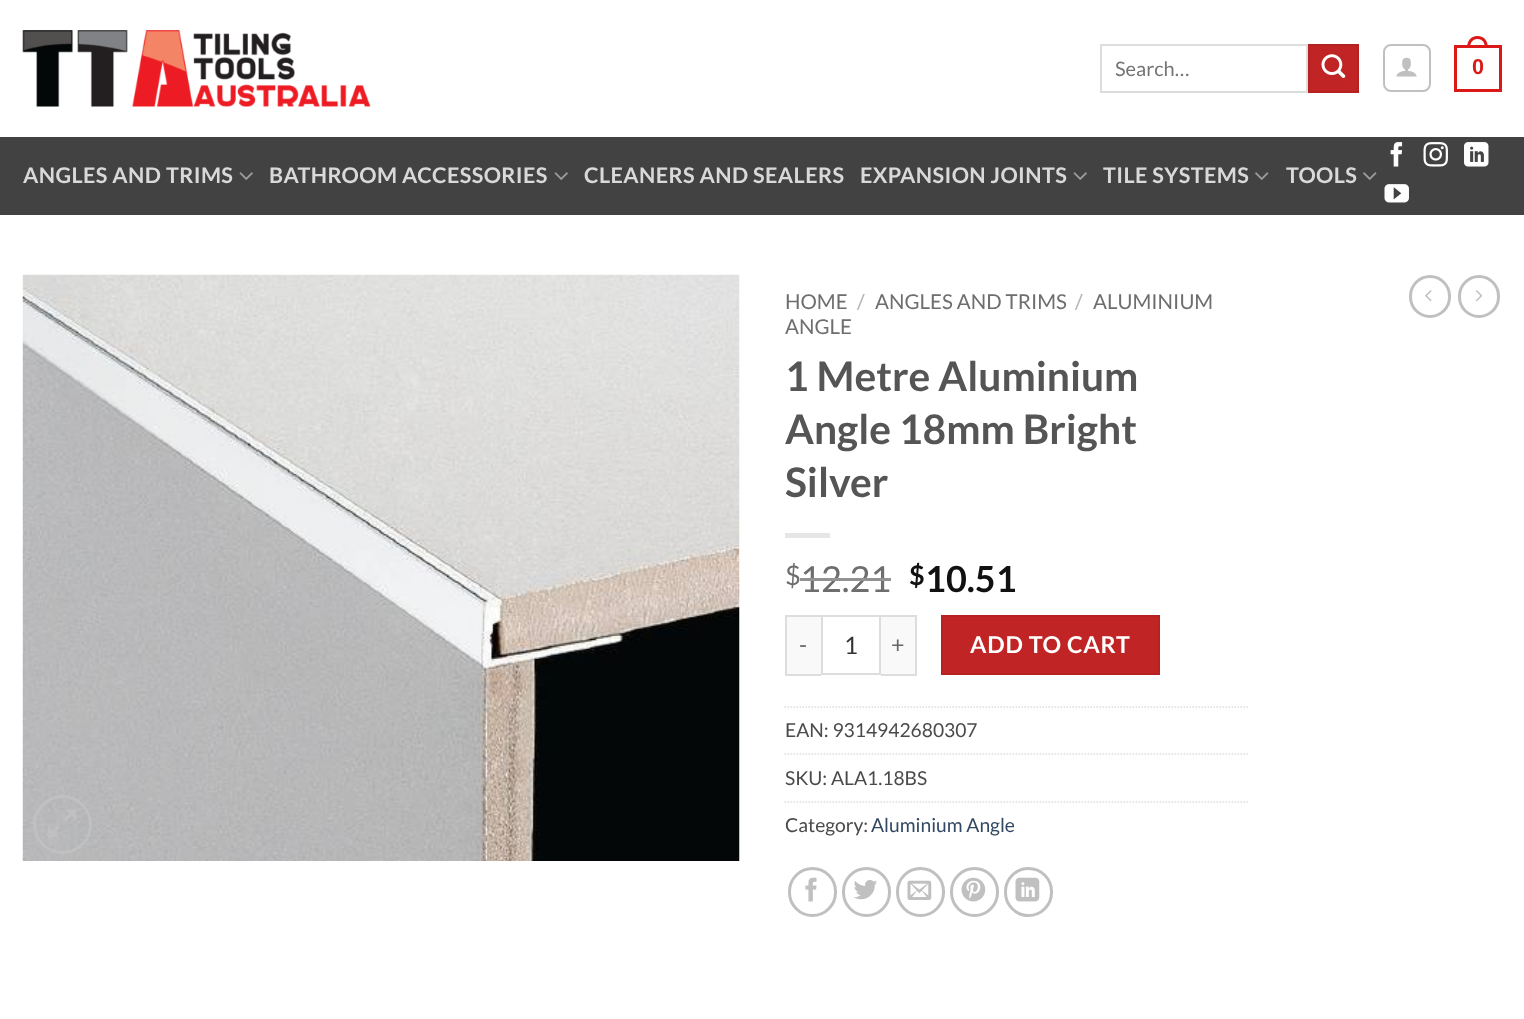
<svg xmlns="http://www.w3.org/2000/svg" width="1524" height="1019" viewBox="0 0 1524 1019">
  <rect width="100%" height="100%" fill="#fff"/>
  <image x="22" y="30" width="349" height="77" href="img/1.png"/>
  <path d="M1101 45h206v47H1101z" fill="none" stroke="#ddd" stroke-width="2"/>
  <path d="M1309 45h49v47H1309z" fill="#c02424" stroke="#b62222" stroke-width="2"/>
  <image x="1321" y="54" width="25" height="24" href="img/2.png"/>
  <rect x="1384" y="45" width="46" height="46" rx="7" fill="none" stroke="#c0c0c0" stroke-width="2"/>
  <image x="1396" y="57" width="21" height="20" href="img/3.png"/>
  <path d="M1455.5 46.5h45v44H1455.5z" fill="none" stroke="#db1919" stroke-width="3"/>
  <path d="M1477.5 36C1484.5 36 1488 41.5 1488 48H1467C1467 41.5 1470.5 36 1477.5 36ZM1477.5 39C1483 39 1485 43.5 1485 48H1470C1470 43.5 1472 39 1477.5 39Z" fill="#db1919" fill-rule="evenodd"/>
  <path d="M0 137h1524v78H0z" fill="#424242"/>
  <image x="239" y="172" width="14" height="8" href="img/4.png"/>
  <image x="554" y="172" width="14" height="8" href="img/4.png"/>
  <image x="1073" y="172" width="14" height="8" href="img/4.png"/>
  <image x="1255" y="172" width="14" height="8" href="img/5.png"/>
  <image x="1363" y="172" width="14" height="8" href="img/5.png"/>
  <image x="1390" y="142" width="13" height="25" href="img/6.png"/>
  <image x="1423" y="142" width="25" height="25" href="img/7.png"/>
  <image x="1464" y="142" width="25" height="25" href="img/8.png"/>
  <image x="1384" y="184" width="25" height="19" href="img/9.png"/>
  <image x="22" y="274" width="718" height="587" href="img/10.png"/>
  <circle cx="62.5" cy="824.5" r="28" fill="none" stroke="#c0c0c0" stroke-width="3"/>
  <image x="48" y="809" width="28" height="28" href="img/11.png"/>
  <path d="M785 533h45v5H785z" fill="#e6e6e6"/>
  <path d="M787 617h34v57H787z" fill="#f9f9f9"/>
  <path d="M785 615h36v2H785z" fill="#ddd"/>
  <path d="M785 674h36v2H785z" fill="#ddd"/>
  <path d="M785 615h2v60H785z" fill="#ddd"/>
  <path d="M822 616h58v58H822z" fill="none" stroke="#ddd" stroke-width="2"/>
  <path d="M881 617h34v57H881z" fill="#f9f9f9"/>
  <path d="M881 615h36v2H881z" fill="#ddd"/>
  <path d="M915 615h2v60H915z" fill="#ddd"/>
  <path d="M881 674h36v2H881z" fill="#ddd"/>
  <path d="M942 616h217v58H942z" fill="#c02424" stroke="#b62222" stroke-width="2"/>
  <path d="M784.5 707H1248" fill="none" stroke="#ddd" stroke-width="1.5" stroke-dasharray="1.5 1.5"/>
  <path d="M784.5 754H1248" fill="none" stroke="#ddd" stroke-width="1.5" stroke-dasharray="1.5 1.5"/>
  <path d="M784.5 802H1248" fill="none" stroke="#ddd" stroke-width="1.5" stroke-dasharray="1.5 1.5"/>
  <rect x="789.5" y="868.5" width="46" height="47" rx="23" fill="none" stroke="#c0c0c0" stroke-width="3"/>
  <image x="805" y="877" width="12" height="25" href="img/12.png"/>
  <rect x="843.5" y="868.5" width="46" height="47" rx="23" fill="none" stroke="#c0c0c0" stroke-width="3"/>
  <image x="854" y="880" width="23" height="20" href="img/13.png"/>
  <rect x="897.5" y="868.5" width="46" height="47" rx="23" fill="none" stroke="#c0c0c0" stroke-width="3"/>
  <image x="907" y="880" width="25" height="20" href="img/14.png"/>
  <rect x="951.5" y="868.5" width="46" height="47" rx="23" fill="none" stroke="#c0c0c0" stroke-width="3"/>
  <image x="961" y="877" width="25" height="25" href="img/15.png"/>
  <rect x="1005.5" y="868.5" width="46" height="47" rx="23" fill="none" stroke="#c0c0c0" stroke-width="3"/>
  <image x="1015" y="877" width="25" height="25" href="img/16.png"/>
  <rect x="1410.5" y="276.5" width="39" height="40" rx="19.5" fill="none" stroke="#c0c0c0" stroke-width="3"/>
  <image x="1425" y="290" width="7" height="12" href="img/17.png"/>
  <rect x="1459.5" y="276.5" width="39" height="40" rx="19.5" fill="none" stroke="#c0c0c0" stroke-width="3"/>
  <image x="1475" y="290" width="8" height="12" href="img/18.png"/>
  <text x="1115" y="76" font-family="Lato" font-size="20" fill="#757575">Search…</text>
  <text x="1472" y="74" font-family="Liberation Sans" font-size="21.6" font-weight="bold" letter-spacing="0.4" fill="#db1919">0</text>
  <g font-family="Lato" font-size="21.6" font-weight="bold" letter-spacing="0.4" fill="#d9d9d9">
    <text x="23" y="183">ANGLES AND TRIMS</text>
    <text x="269" y="183">BATHROOM ACCESSORIES</text>
    <text x="584" y="183">CLEANERS AND SEALERS</text>
    <text x="860" y="183">EXPANSION JOINTS</text>
    <text x="1103" y="183">TILE SYSTEMS</text>
    <text x="1286" y="183">TOOLS</text>
  </g>
  <text x="785" y="309" font-family="Lato" font-size="20.5" fill="#6e6e6e">HOME</text>
  <text x="857" y="309" font-family="Lato" font-size="20.5" fill="#b2b2b2">/</text>
  <text x="875" y="309" font-family="Lato" font-size="20.5" fill="#6e6e6e">ANGLES AND TRIMS</text>
  <text x="1075" y="309" font-family="Lato" font-size="20.5" fill="#b2b2b2">/</text>
  <g font-family="Lato" font-size="20.5" fill="#6e6e6e">
    <text x="1093" y="309">ALUMINIUM</text>
    <text x="785" y="334">ANGLE</text>
  </g>
  <g font-family="Lato" font-size="40.75" font-weight="bold" fill="#555">
    <text x="785" y="391">1 Metre Aluminium</text>
    <text x="785" y="444">Angle 18mm Bright</text>
    <text x="785" y="497">Silver</text>
  </g>
  <text x="785" y="585" font-family="Lato" font-size="27" fill="#6e6e6e">$</text>
  <text x="800" y="592" font-family="Lato" font-size="36" fill="#6e6e6e">12.21</text>
  <path d="M800 578h91v3H800z" fill="#929292"/>
  <text x="909" y="585" font-family="Lato" font-size="27" font-weight="bold" fill="#111">$</text>
  <text x="925" y="592" font-family="Lato" font-size="36" font-weight="bold" fill="#111">10.51</text>
  <text x="799" y="653" font-family="Lato" font-size="23.25" letter-spacing="0.75" fill="#666">-</text>
  <text x="844" y="654" font-family="Lato" font-size="24" fill="#333">1</text>
  <text x="891" y="653" font-family="Lato" font-size="23.25" letter-spacing="0.75" fill="#666">+</text>
  <text x="970" y="653" font-family="Lato" font-size="23.25" font-weight="bold" letter-spacing="0.75" fill="#fff">ADD TO CART</text>
  <g font-family="Lato" font-size="19.25" fill="#4a4a4a">
    <text x="785" y="737">EAN: 9314942680307</text>
    <text x="785" y="785">SKU: ALA1.18BS</text>
    <text x="785" y="832">Category:</text>
  </g>
  <text x="871" y="832" font-family="Lato" font-size="19.25" fill="#334862">Aluminium Angle</text>
</svg>
